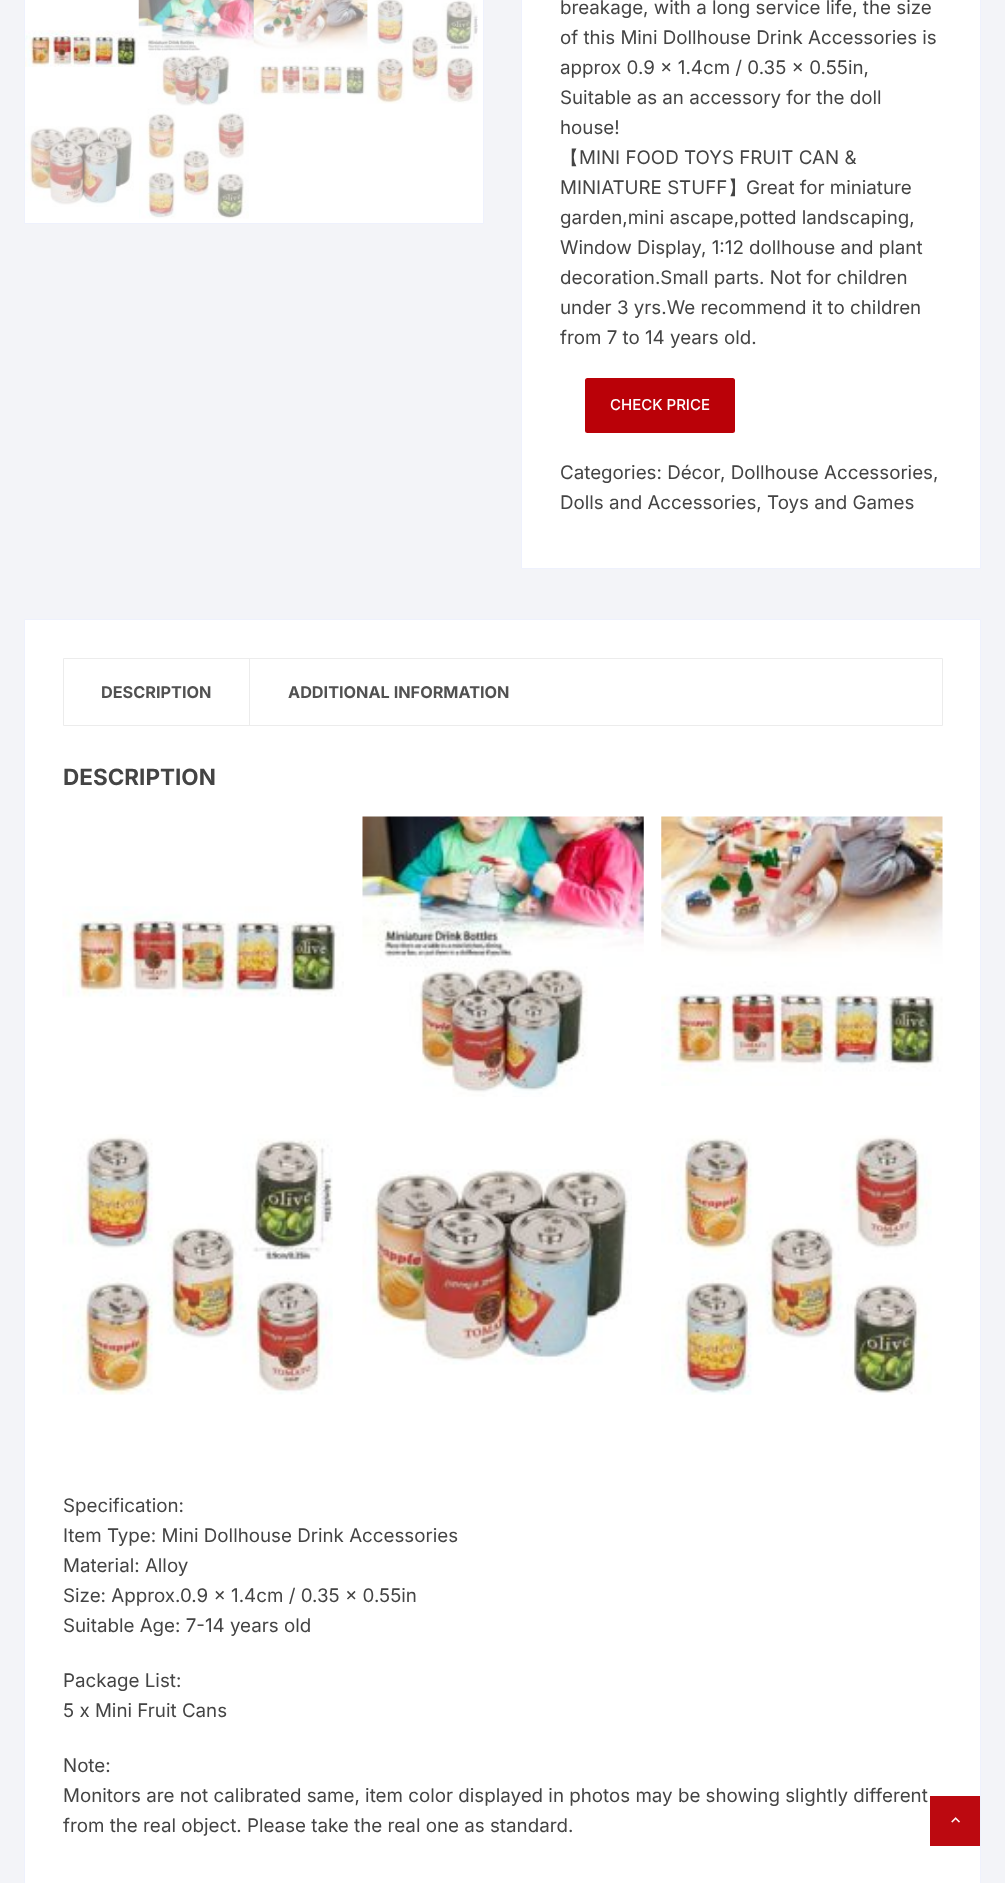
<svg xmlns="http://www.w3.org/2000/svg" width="1005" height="1883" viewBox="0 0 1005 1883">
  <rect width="100%" height="100%" fill="#f3f4f8"/>
  <path d="M24.5 -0.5h459v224H24.5z" fill="#fff" stroke="#eef1fd"/>
  <image x="25" y="30" width="114" height="37" href="img/1.png"/>
  <image x="138" y="0" width="116" height="106" href="img/2.png"/>
  <image x="253" y="0" width="115" height="99" href="img/3.png"/>
  <image x="367" y="0" width="111" height="104" href="img/4.png"/>
  <image x="25" y="126" width="109" height="81" href="img/5.png"/>
  <image x="139" y="108" width="110" height="111" href="img/6.png"/>
  <path d="M521.5 -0.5h459v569H521.5z" fill="#fff" stroke="#eef1fd"/>
  <rect x="585" y="378" width="150" height="55" rx="2.5" fill="#ba0108"/>
  <path d="M24.5 619.5h956v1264H24.5z" fill="#fff" stroke="#eef1fd"/>
  <path d="M63.5 658.5h879v67H63.5z" fill="none" stroke="#ececec"/>
  <path d="M249 659h1v66H249z" fill="#ececec"/>
  <image x="62" y="906" width="282" height="92" href="img/7.png"/>
  <image x="362" y="816" width="282" height="281" href="img/8.png"/>
  <image x="661" y="816" width="282" height="270" href="img/9.png"/>
  <image x="62" y="1134" width="271" height="261" href="img/10.png"/>
  <image x="362" y="1169" width="270" height="196" href="img/11.png"/>
  <image x="661" y="1135" width="271" height="260" href="img/12.png"/>
  <path d="M930 1796h50v50H930z" fill="#bc0910"/>
  <image x="951" y="1817" width="9" height="6" href="img/13.png"/>
  <g font-family="Inter" font-size="18.75" fill="#444">
    <text x="560" y="14">breakage, with a long service life, the size</text>
    <text x="560" y="44">of this Mini Dollhouse Drink Accessories is</text>
    <text x="560" y="74">approx 0.9 x 1.4cm / 0.35 x 0.55in,</text>
    <text x="560" y="104">Suitable as an accessory for the doll</text>
    <text x="560" y="134">house!</text>
  </g>
  <text x="560" y="164" font-family="WenQuanYi Zen Hei" font-size="18.75" font-weight="500" fill="#444">【</text>
  <g font-family="Inter" font-size="18.75" fill="#444">
    <text x="579" y="164">MINI FOOD TOYS FRUIT CAN &amp;</text>
    <text x="560" y="194">MINIATURE STUFF</text>
  </g>
  <text x="728" y="194" font-family="WenQuanYi Zen Hei" font-size="18.75" font-weight="500" fill="#444">】</text>
  <g font-family="Inter" font-size="18.75" fill="#444">
    <text x="746" y="194">Great for miniature</text>
    <text x="560" y="224">garden,mini ascape,potted landscaping,</text>
    <text x="560" y="254">Window Display, 1:12 dollhouse and plant</text>
    <text x="560" y="284">decoration.Small parts. Not for children</text>
    <text x="560" y="314">under 3 yrs.We recommend it to children</text>
    <text x="560" y="344">from 7 to 14 years old.</text>
  </g>
  <text x="610" y="410" font-family="Inter" font-size="15" font-weight="500" fill="#fff">CHECK PRICE</text>
  <g font-family="Inter" font-size="18.75" fill="#444">
    <text x="560" y="479">Categories: Décor</text>
    <text x="720" y="479">, Dollhouse Accessories,</text>
    <text x="560" y="509">Dolls and Accessories, Toys and Games</text>
  </g>
  <g font-family="Inter" font-size="16.25" font-weight="bold" fill="#515151">
    <text x="101" y="698">DESCRIPTION</text>
    <text x="288" y="698">ADDITIONAL INFORMATION</text>
  </g>
  <text x="63" y="785" font-family="Inter" font-size="22.5" font-weight="bold" fill="#444">DESCRIPTION</text>
  <g font-family="Inter" font-size="18.75" fill="#444">
    <text x="63" y="1512">Specification:</text>
    <text x="63" y="1542">Item Type: Mini Dollhouse Drink Accessories</text>
    <text x="63" y="1572">Material: Alloy</text>
    <text x="63" y="1602">Size: Approx.0.9 x 1.4cm / 0.35 x 0.55in</text>
    <text x="63" y="1632">Suitable Age: 7-14 years old</text>
    <text x="63" y="1687">Package List:</text>
    <text x="63" y="1717">5 x Mini Fruit Cans</text>
    <text x="63" y="1772">Note:</text>
    <text x="63" y="1802">Monitors are not calibrated same, item color displayed in photos may be showing slightly different</text>
    <text x="63" y="1832">from the real object. Please take the real one as standard.</text>
  </g>
</svg>
